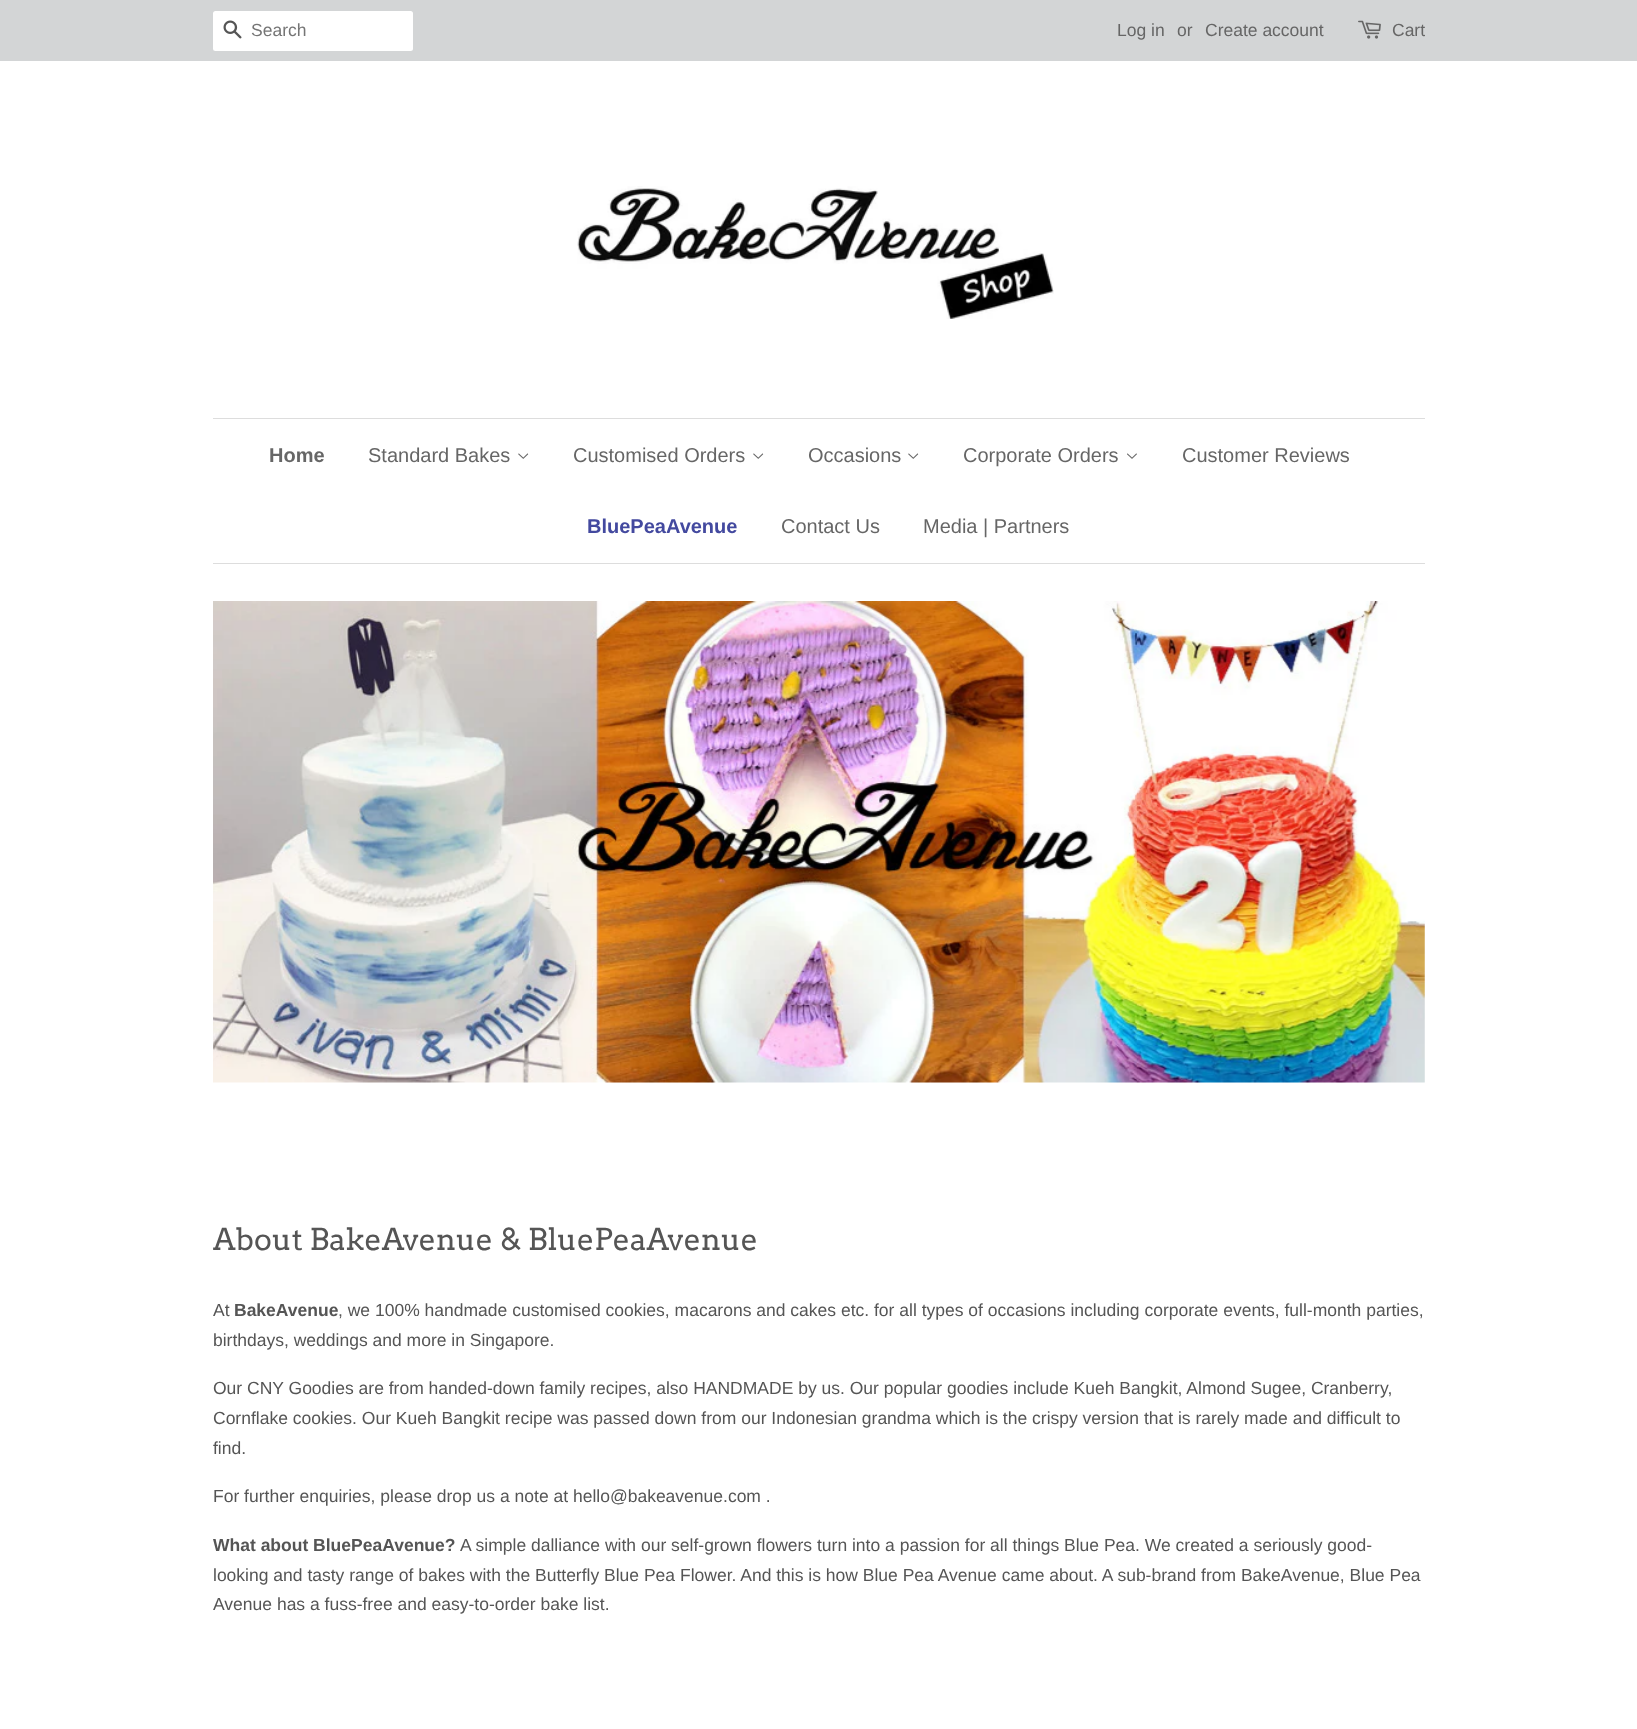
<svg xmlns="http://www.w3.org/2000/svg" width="1637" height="1729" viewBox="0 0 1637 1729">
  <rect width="100%" height="100%" fill="#fff"/>
  <path d="M0 0h1637v61H0z" fill="#d3d5d6"/>
  <rect x="213" y="11" width="200" height="40" rx="2.5" fill="#fff"/>
  <image x="223" y="20" width="19" height="19" href="img/1.png"/>
  <image x="1358" y="20" width="23" height="19" href="img/2.png"/>
  <image x="577" y="186" width="477" height="133" href="img/3.png"/>
  <path d="M213 418h1212v1H213z" fill="#ddd"/>
  <path d="M213 563h1212v1H213z" fill="#ddd"/>
  <image x="518" y="453" width="11" height="6" href="img/4.png"/>
  <image x="753" y="453" width="11" height="6" href="img/4.png"/>
  <image x="908" y="453" width="11" height="6" href="img/4.png"/>
  <image x="1127" y="453" width="10" height="6" href="img/5.png"/>
  <image x="213" y="601" width="1212" height="482" href="img/6.png"/>
  <text x="251" y="36" font-family="Liberation Sans" font-size="17.5" fill="#757575">Search</text>
  <g font-family="Liberation Sans" font-size="17.5" fill="#666">
    <text x="1117" y="36">Log in</text>
    <text x="1177" y="36">or</text>
    <text x="1205" y="36">Create account</text>
    <text x="1392" y="36">Cart</text>
  </g>
  <text x="269" y="462" font-family="Liberation Sans" font-size="20" font-weight="bold" fill="#666">Home</text>
  <g font-family="Liberation Sans" font-size="20" fill="#666">
    <text x="368" y="462">Standard Bakes</text>
    <text x="573" y="462">Customised Orders</text>
    <text x="808" y="462">Occasions</text>
    <text x="963" y="462">Corporate Orders</text>
    <text x="1182" y="462">Customer Reviews</text>
  </g>
  <text x="587" y="533" font-family="Liberation Sans" font-size="20" font-weight="bold" fill="#43499f">BluePeaAvenue</text>
  <g font-family="Liberation Sans" font-size="20" fill="#666">
    <text x="781" y="533">Contact Us</text>
    <text x="923" y="533">Media | Partners</text>
  </g>
  <text x="213" y="1250" font-family="Arvo" font-size="30" fill="#555">About BakeAvenue &amp; BluePeaAvenue</text>
  <text x="213" y="1316" font-family="Liberation Sans" font-size="17.5" fill="#555">At</text>
  <text x="234" y="1316" font-family="Liberation Sans" font-size="17.5" font-weight="bold" fill="#555">BakeAvenue</text>
  <g font-family="Liberation Sans" font-size="17.5" fill="#555">
    <text x="338" y="1316">, we 100% handmade customised cookies, macarons and cakes etc. for all types of occasions including corporate events, full-month parties,</text>
    <text x="213" y="1346">birthdays, weddings and more in Singapore.</text>
    <text x="213" y="1394">Our CNY Goodies are from handed-down family recipes, also HANDMADE by us. Our popular goodies include Kueh Bangkit, Almond Sugee, Cranberry,</text>
    <text x="213" y="1424">Cornflake cookies. Our Kueh Bangkit recipe was passed down from our Indonesian grandma which is the crispy version that is rarely made and difficult to</text>
    <text x="213" y="1454">find.</text>
    <text x="213" y="1502">For further enquiries, please drop us a note at hello@bakeavenue.com .</text>
  </g>
  <text x="213" y="1551" font-family="Liberation Sans" font-size="17.5" font-weight="bold" fill="#555">What about BluePeaAvenue?</text>
  <g font-family="Liberation Sans" font-size="17.5" fill="#555">
    <text x="460" y="1551">A simple dalliance with our self-grown flowers turn into a passion for all things Blue Pea. We created a seriously good-</text>
    <text x="213" y="1581">looking and tasty range of bakes with the Butterfly Blue Pea Flower. And this is how Blue Pea Avenue came about. A sub-brand from BakeAvenue, Blue Pea</text>
    <text x="213" y="1610">Avenue has a fuss-free and easy-to-order bake list.</text>
  </g>
</svg>
